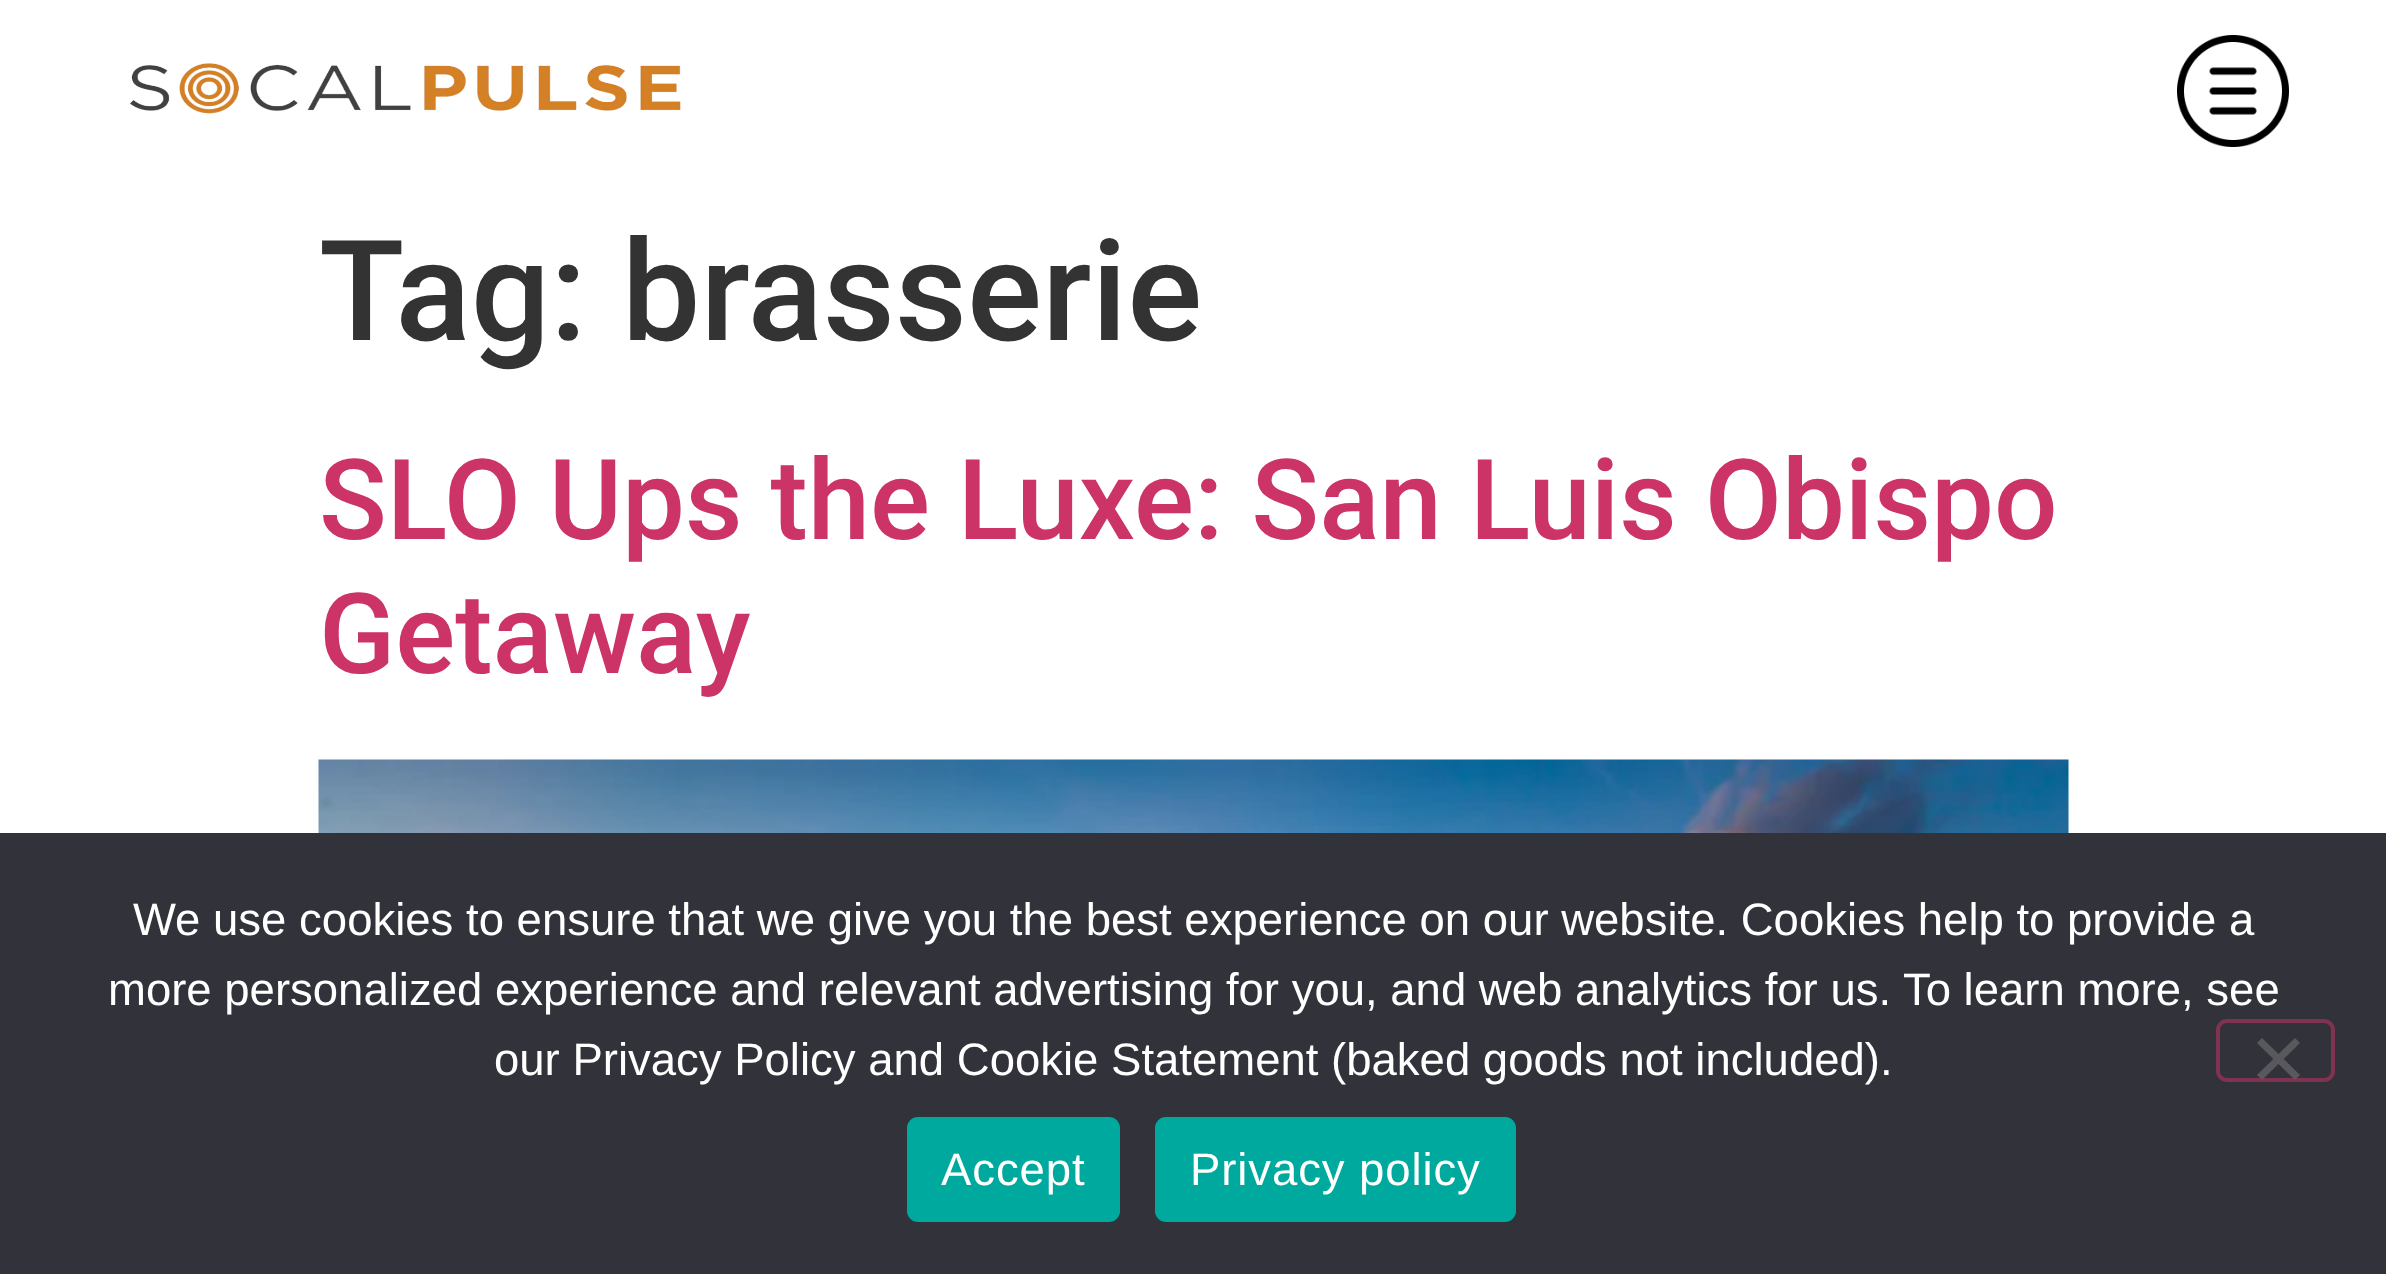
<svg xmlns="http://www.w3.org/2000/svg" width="2386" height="1274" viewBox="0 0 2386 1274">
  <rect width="100%" height="100%" fill="#fff"/>
  <image x="129" y="63" width="552" height="51" href="img/1.png"/>
  <image x="2177" y="35" width="112" height="112" href="img/2.png"/>
  <image x="318" y="759" width="1751" height="74" href="img/3.png"/>
  <path d="M0 833h2386v441H0z" fill="#32323a"/>
  <rect x="2218" y="1021" width="115" height="59" rx="9" fill="none" stroke="#7f3350" stroke-width="4"/>
  <path d="M2295 1038L2300 1043L2262 1080L2257 1075Z" fill="#59595d"/>
  <path d="M2257 1043L2262 1038L2300 1075L2295 1080Z" fill="#59595d"/>
  <rect x="907" y="1117" width="213" height="105" rx="11" fill="#00a99d"/>
  <rect x="1155" y="1117" width="361" height="105" rx="11" fill="#00a99d"/>
  <text x="319" y="340" font-family="Roboto" font-size="140" font-weight="500" fill="#333">Tag: brasserie</text>
  <g font-family="Roboto" font-size="112" font-weight="500" fill="#c36">
    <text x="319" y="539">SLO Ups the Luxe: San Luis Obispo</text>
    <text x="319" y="673">Getaway</text>
  </g>
  <g font-family="Liberation Sans" font-size="45.5" fill="#fff">
    <text x="133" y="935">We use cookies to ensure that we give you the best experience on our website. Cookies help to provide a</text>
    <text x="108" y="1005">more personalized experience and relevant advertising for you, and web analytics for us. To learn more, see</text>
    <text x="494" y="1075">our Privacy Policy and Cookie Statement (baked goods not included).</text>
  </g>
  <g font-family="Liberation Sans" font-size="45.5" letter-spacing="0.9" fill="#fff">
    <text x="941" y="1185">Accept</text>
    <text x="1190" y="1185">Privacy policy</text>
  </g>
</svg>
